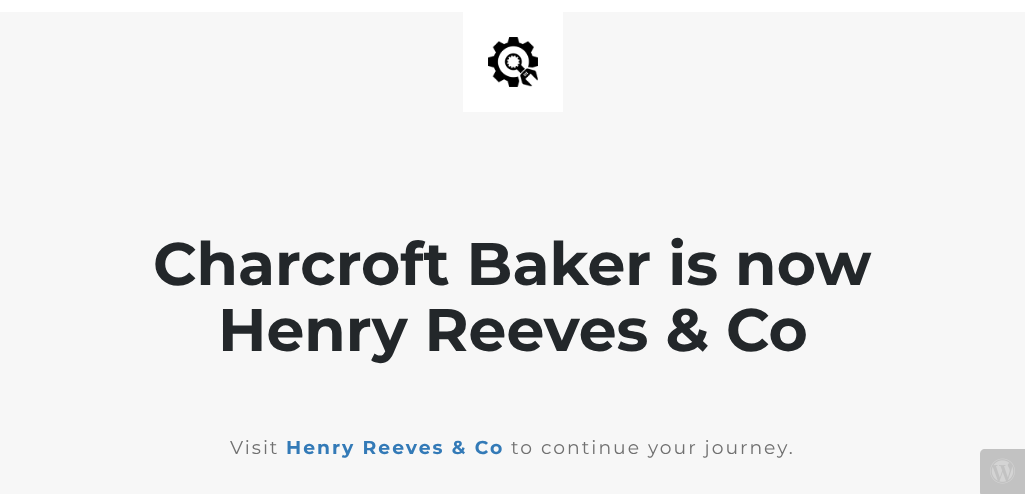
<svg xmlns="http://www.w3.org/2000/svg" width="1025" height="494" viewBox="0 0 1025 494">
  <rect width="100%" height="100%" fill="#f7f7f7"/>
  <path d="M0 0h1025v12H0z" fill="#fff"/>
  <path d="M463 12h100v100H463z" fill="#fff"/>
  <image x="488" y="37" width="50" height="50" href="img/1.png"/>
  <path d="M985 449H1025V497H985C982 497 980 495 980 492V454C980 451 982 449 985 449Z" fill="#c2c2c2"/>
  <image x="990" y="458" width="25" height="26" href="img/2.png"/>
  <g font-family="Montserrat" font-size="60" font-weight="100" fill="#23272a">
    <text x="153" y="285">Charcroft Baker is now</text>
    <text x="218" y="351">Henry Reeves &amp; Co</text>
  </g>
  <text x="230" y="454" font-family="'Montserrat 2'" font-size="18.75" font-weight="100" letter-spacing="2" fill="#707070">Visit</text>
  <text x="286" y="454" font-family="Montserrat" font-size="18.75" font-weight="100" letter-spacing="2" fill="#337ab7">Henry Reeves &amp; Co</text>
  <text x="511" y="454" font-family="'Montserrat 2'" font-size="18.75" font-weight="100" letter-spacing="2" fill="#707070">to continue your journey.</text>
</svg>
